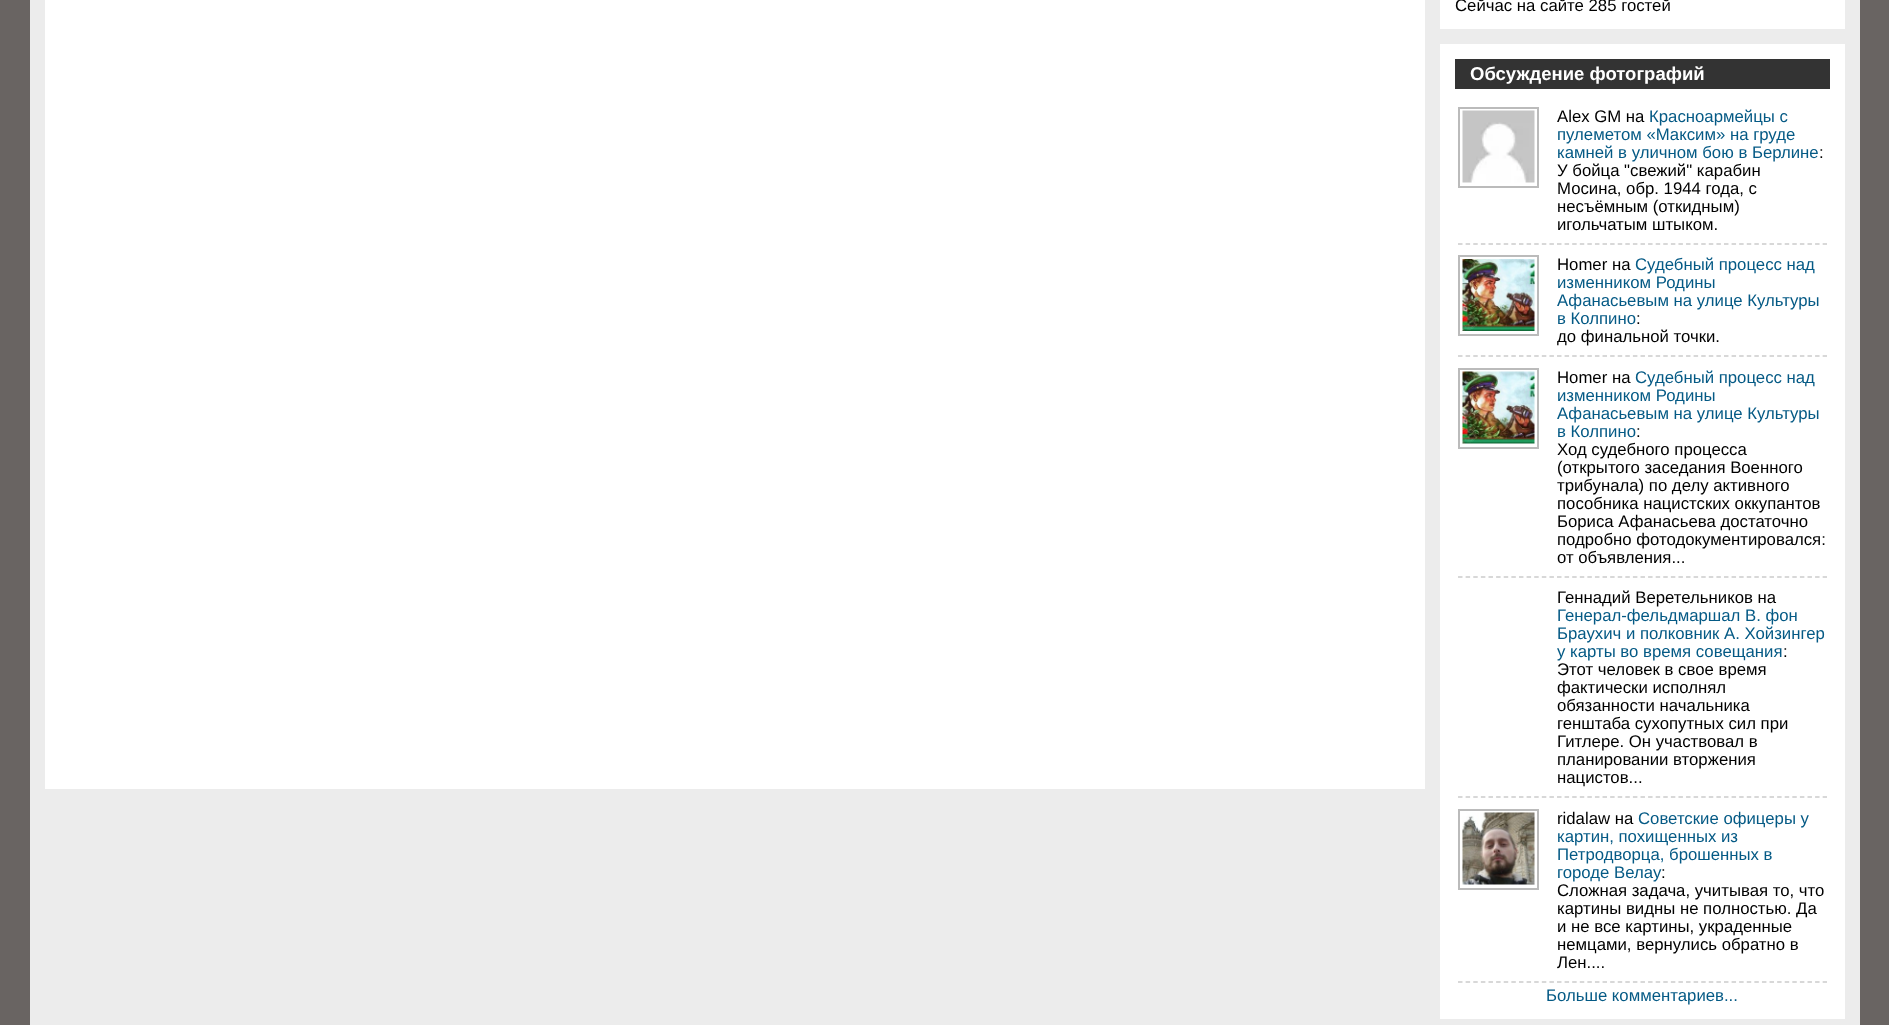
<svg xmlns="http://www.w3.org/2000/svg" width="1889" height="1025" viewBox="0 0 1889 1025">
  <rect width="100%" height="100%" fill="#696462"/>
  <path d="M30 0h1830v1025H30z" fill="#ececec"/>
  <path d="M45 0h1380v789H45z" fill="#fff"/>
  <path d="M1440 0h405v29H1440z" fill="#fff"/>
  <path d="M1440 44h405v975H1440z" fill="#fff"/>
  <path d="M1455 59h375v30H1455z" fill="#333"/>
  <path d="M1458 244H1554" fill="none" stroke="#ccc" stroke-width="1.5" stroke-dasharray="4.5 3.12"/>
  <path d="M1459 108h79v79H1459z" fill="none" stroke="#bbb" stroke-width="2"/>
  <image x="1462" y="110" width="73" height="73" href="img/1.png"/>
  <path d="M1557 244H1827" fill="none" stroke="#ccc" stroke-width="1.5" stroke-dasharray="4.5 3.09"/>
  <path d="M1458 356H1554" fill="none" stroke="#ccc" stroke-width="1.5" stroke-dasharray="4.5 3.12"/>
  <path d="M1459 256h79v79H1459z" fill="none" stroke="#bbb" stroke-width="2"/>
  <image x="1462" y="259" width="73" height="72" href="img/2.png"/>
  <path d="M1557 356H1827" fill="none" stroke="#ccc" stroke-width="1.5" stroke-dasharray="4.5 3.09"/>
  <path d="M1458 577H1554" fill="none" stroke="#ccc" stroke-width="1.5" stroke-dasharray="4.5 3.12"/>
  <path d="M1459 369h79v79H1459z" fill="none" stroke="#bbb" stroke-width="2"/>
  <image x="1462" y="371" width="73" height="73" href="img/3.png"/>
  <path d="M1557 577H1827" fill="none" stroke="#ccc" stroke-width="1.5" stroke-dasharray="4.5 3.09"/>
  <path d="M1557 797H1827" fill="none" stroke="#ccc" stroke-width="1.5" stroke-dasharray="4.5 3.09"/>
  <path d="M1458 797H1554" fill="none" stroke="#ccc" stroke-width="1.5" stroke-dasharray="4.5 3.12"/>
  <path d="M1458 982H1554" fill="none" stroke="#ccc" stroke-width="1.5" stroke-dasharray="4.5 3.12"/>
  <path d="M1459 810h79v79H1459z" fill="none" stroke="#bbb" stroke-width="2"/>
  <image x="1462" y="812" width="73" height="73" href="img/4.png"/>
  <path d="M1557 982H1827" fill="none" stroke="#ccc" stroke-width="1.5" stroke-dasharray="4.5 3.09"/>
  <text x="1455" y="11" font-family="Liberation Sans" font-size="16.75" fill="#000">Сейчас на сайте 285 гостей</text>
  <text x="1470" y="80" font-family="Liberation Sans" font-size="18.5" font-weight="bold" fill="#fff">Обсуждение фотографий</text>
  <text x="1557" y="122" font-family="Liberation Sans" font-size="16.75" fill="#000">Alex GM на</text>
  <g font-family="Liberation Sans" font-size="16.75" fill="#055a85">
    <text x="1649" y="122">Красноармейцы с</text>
    <text x="1557" y="140">пулеметом «Максим» на груде</text>
    <text x="1557" y="158">камней в уличном бою в Берлине</text>
  </g>
  <g font-family="Liberation Sans" font-size="16.75" fill="#000">
    <text x="1819" y="158">:</text>
    <text x="1557" y="176">У бойца "свежий" карабин</text>
    <text x="1557" y="194">Мосина, обр. 1944 года, с</text>
    <text x="1557" y="212">несъёмным (откидным)</text>
    <text x="1557" y="230">игольчатым штыком.</text>
    <text x="1557" y="270">Homer на</text>
  </g>
  <g font-family="Liberation Sans" font-size="16.75" fill="#055a85">
    <text x="1635" y="270">Судебный процесс над</text>
    <text x="1557" y="288">изменником Родины</text>
    <text x="1557" y="306">Афанасьевым на улице Культуры</text>
    <text x="1557" y="324">в Колпино</text>
  </g>
  <g font-family="Liberation Sans" font-size="16.75" fill="#000">
    <text x="1636" y="324">:</text>
    <text x="1557" y="342">до финальной точки.</text>
    <text x="1557" y="383">Homer на</text>
  </g>
  <g font-family="Liberation Sans" font-size="16.75" fill="#055a85">
    <text x="1635" y="383">Судебный процесс над</text>
    <text x="1557" y="401">изменником Родины</text>
    <text x="1557" y="419">Афанасьевым на улице Культуры</text>
    <text x="1557" y="437">в Колпино</text>
  </g>
  <g font-family="Liberation Sans" font-size="16.75" fill="#000">
    <text x="1636" y="437">:</text>
    <text x="1557" y="455">Ход судебного процесса</text>
    <text x="1557" y="473">(открытого заседания Военного</text>
    <text x="1557" y="491">трибунала) по делу активного</text>
    <text x="1557" y="509">пособника нацистских оккупантов</text>
    <text x="1557" y="527">Бориса Афанасьева достаточно</text>
    <text x="1557" y="545">подробно фотодокументировался:</text>
    <text x="1557" y="563">от объявления...</text>
    <text x="1557" y="603">Геннадий Веретельников на</text>
  </g>
  <g font-family="Liberation Sans" font-size="16.75" fill="#055a85">
    <text x="1557" y="621">Генерал-фельдмаршал В. фон</text>
    <text x="1557" y="639">Браухич и полковник А. Хойзингер</text>
    <text x="1557" y="657">у карты во время совещания</text>
  </g>
  <g font-family="Liberation Sans" font-size="16.75" fill="#000">
    <text x="1783" y="657">:</text>
    <text x="1557" y="675">Этот человек в свое время</text>
    <text x="1557" y="693">фактически исполнял</text>
    <text x="1557" y="711">обязанности начальника</text>
    <text x="1557" y="729">генштаба сухопутных сил при</text>
    <text x="1557" y="747">Гитлере. Он участвовал в</text>
    <text x="1557" y="765">планировании вторжения</text>
    <text x="1557" y="783">нацистов...</text>
    <text x="1557" y="824">ridalaw на</text>
  </g>
  <g font-family="Liberation Sans" font-size="16.75" fill="#055a85">
    <text x="1638" y="824">Советские офицеры у</text>
    <text x="1557" y="842">картин, похищенных из</text>
    <text x="1557" y="860">Петродворца, брошенных в</text>
    <text x="1557" y="878">городе Велау</text>
  </g>
  <g font-family="Liberation Sans" font-size="16.75" fill="#000">
    <text x="1661" y="878">:</text>
    <text x="1557" y="896">Сложная задача, учитывая то, что</text>
    <text x="1557" y="914">картины видны не полностью. Да</text>
    <text x="1557" y="932">и не все картины, украденные</text>
    <text x="1557" y="950">немцами, вернулись обратно в</text>
    <text x="1557" y="968">Лен....</text>
  </g>
  <text x="1546" y="1001" font-family="Liberation Sans" font-size="16.75" fill="#055a85">Больше комментариев...</text>
</svg>
